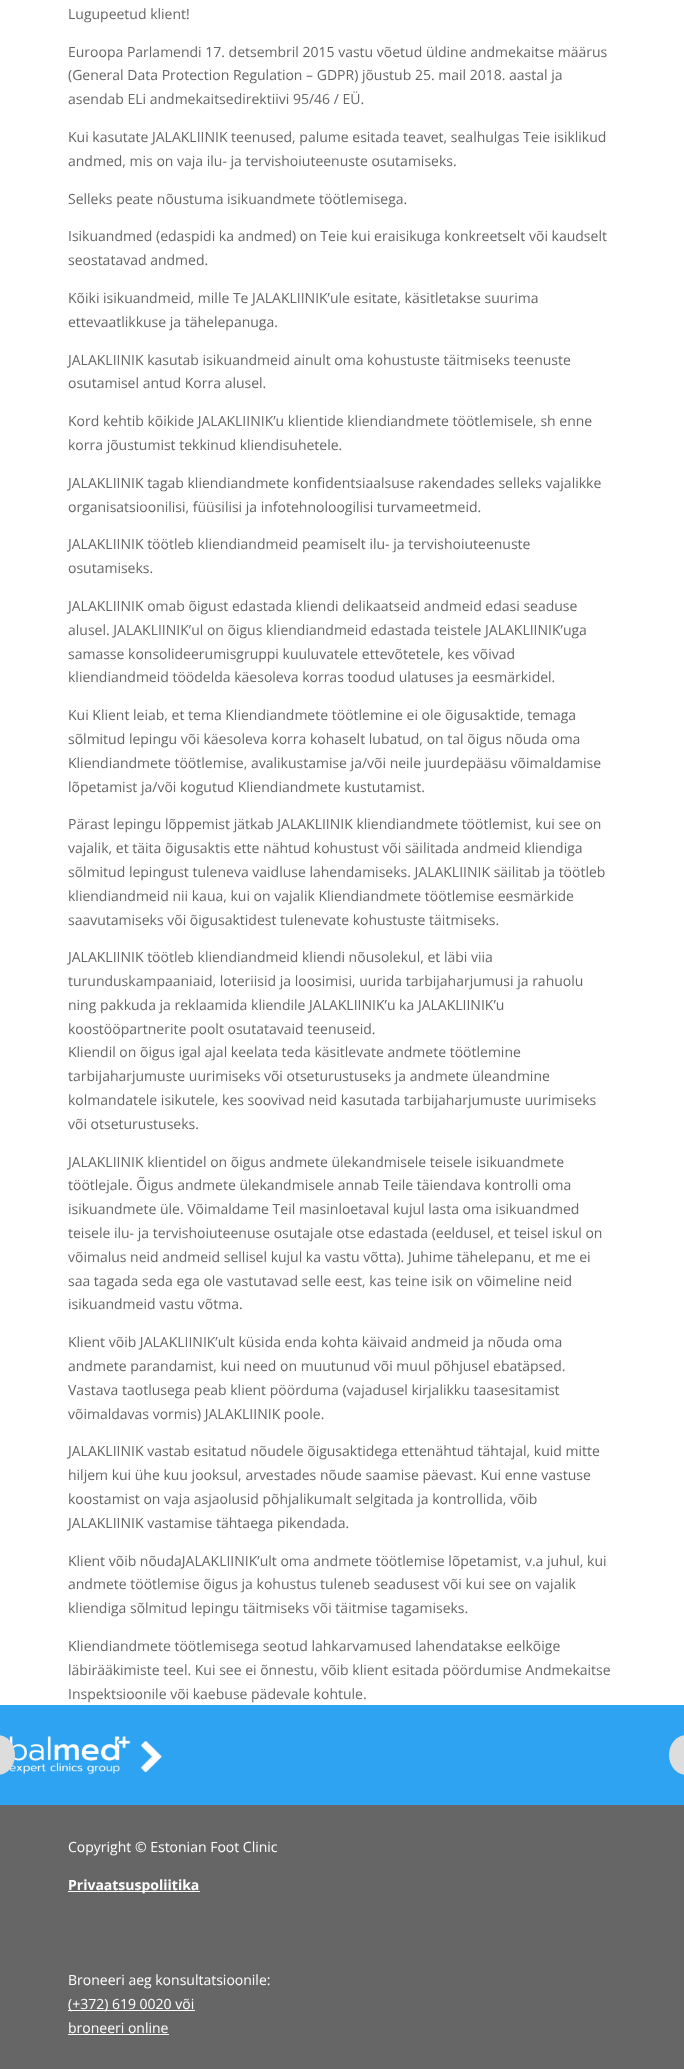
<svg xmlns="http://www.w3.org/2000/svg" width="684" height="2069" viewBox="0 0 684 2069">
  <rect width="100%" height="100%" fill="#fff"/>
  <path d="M0 1705h684v100H0z" fill="#2ea3f2"/>
  <image x="9" y="1736" width="153" height="39" href="img/1.png"/>
  <rect x="-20" y="1735" width="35" height="40" rx="20" fill="#ddd"/>
  <rect x="669" y="1735" width="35" height="40" rx="20" fill="#ddd"/>
  <path d="M0 1805h684v264H0z" fill="#666"/>
  <path d="M68 1891h132v1H68z" fill="#fff"/>
  <path d="M68 2010h127v1H68z" fill="#fff"/>
  <path d="M68 2034h101v1H68z" fill="#fff"/>
  <g font-family="Open Sans" font-size="14" fill="#666">
    <text x="68" y="19">Lugupeetud klient!</text>
    <text x="68" y="57">Euroopa Parlamendi 17. detsembril 2015 vastu võetud üldine andmekaitse määrus</text>
    <text x="68" y="80">(General Data Protection Regulation – GDPR) jõustub 25. mail 2018. aastal ja</text>
    <text x="68" y="104">asendab ELi andmekaitsedirektiivi 95/46 / EÜ.</text>
    <text x="68" y="142">Kui kasutate JALAKLIINIK teenused, palume esitada teavet, sealhulgas Teie isiklikud</text>
    <text x="68" y="166">andmed, mis on vaja ilu- ja tervishoiuteenuste osutamiseks.</text>
    <text x="68" y="204">Selleks peate nõustuma isikuandmete töötlemisega.</text>
    <text x="68" y="241">Isikuandmed (edaspidi ka andmed) on Teie kui eraisikuga konkreetselt või kaudselt</text>
    <text x="68" y="265">seostatavad andmed.</text>
    <text x="68" y="303">Kõiki isikuandmeid, mille Te JALAKLIINIK’ule esitate, käsitletakse suurima</text>
    <text x="68" y="327">ettevaatlikkuse ja tähelepanuga.</text>
    <text x="68" y="365">JALAKLIINIK kasutab isikuandmeid ainult oma kohustuste täitmiseks teenuste</text>
    <text x="68" y="388">osutamisel antud Korra alusel.</text>
    <text x="68" y="426">Kord kehtib kõikide JALAKLIINIK’u klientide kliendiandmete töötlemisele, sh enne</text>
    <text x="68" y="450">korra jõustumist tekkinud kliendisuhetele.</text>
    <text x="68" y="488">JALAKLIINIK tagab kliendiandmete konfidentsiaalsuse rakendades selleks vajalikke</text>
    <text x="68" y="512">organisatsioonilisi, füüsilisi ja infotehnoloogilisi turvameetmeid.</text>
    <text x="68" y="549">JALAKLIINIK töötleb kliendiandmeid peamiselt ilu- ja tervishoiuteenuste</text>
    <text x="68" y="573">osutamiseks.</text>
    <text x="68" y="611">JALAKLIINIK omab õigust edastada kliendi delikaatseid andmeid edasi seaduse</text>
    <text x="68" y="635">alusel. JALAKLIINIK’ul on õigus kliendiandmeid edastada teistele JALAKLIINIK’uga</text>
    <text x="68" y="659">samasse konsolideerumisgruppi kuuluvatele ettevõtetele, kes võivad</text>
    <text x="68" y="682">kliendiandmeid töödelda käesoleva korras toodud ulatuses ja eesmärkidel.</text>
    <text x="68" y="720">Kui Klient leiab, et tema Kliendiandmete töötlemine ei ole õigusaktide, temaga</text>
    <text x="68" y="744">sõlmitud lepingu või käesoleva korra kohaselt lubatud, on tal õigus nõuda oma</text>
    <text x="68" y="768">Kliendiandmete töötlemise, avalikustamise ja/või neile juurdepääsu võimaldamise</text>
    <text x="68" y="792">lõpetamist ja/või kogutud Kliendiandmete kustutamist.</text>
    <text x="68" y="829">Pärast lepingu lõppemist jätkab JALAKLIINIK kliendiandmete töötlemist, kui see on</text>
    <text x="68" y="853">vajalik, et täita õigusaktis ette nähtud kohustust või säilitada andmeid kliendiga</text>
    <text x="68" y="877">sõlmitud lepingust tuleneva vaidluse lahendamiseks. JALAKLIINIK säilitab ja töötleb</text>
    <text x="68" y="901">kliendiandmeid nii kaua, kui on vajalik Kliendiandmete töötlemise eesmärkide</text>
    <text x="68" y="925">saavutamiseks või õigusaktidest tulenevate kohustuste täitmiseks.</text>
    <text x="68" y="962">JALAKLIINIK töötleb kliendiandmeid kliendi nõusolekul, et läbi viia</text>
    <text x="68" y="986">turunduskampaaniaid, loteriisid ja loosimisi, uurida tarbijaharjumusi ja rahuolu</text>
    <text x="68" y="1010">ning pakkuda ja reklaamida kliendile JALAKLIINIK’u ka JALAKLIINIK’u</text>
    <text x="68" y="1034">koostööpartnerite poolt osutatavaid teenuseid.</text>
    <text x="68" y="1057">Kliendil on õigus igal ajal keelata teda käsitlevate andmete töötlemine</text>
    <text x="68" y="1081">tarbijaharjumuste uurimiseks või otseturustuseks ja andmete üleandmine</text>
    <text x="68" y="1105">kolmandatele isikutele, kes soovivad neid kasutada tarbijaharjumuste uurimiseks</text>
    <text x="68" y="1129">või otseturustuseks.</text>
    <text x="68" y="1167">JALAKLIINIK klientidel on õigus andmete ülekandmisele teisele isikuandmete</text>
    <text x="68" y="1190">töötlejale. Õigus andmete ülekandmisele annab Teile täiendava kontrolli oma</text>
    <text x="68" y="1214">isikuandmete üle. Võimaldame Teil masinloetaval kujul lasta oma isikuandmed</text>
    <text x="68" y="1238">teisele ilu- ja tervishoiuteenuse osutajale otse edastada (eeldusel, et teisel iskul on</text>
    <text x="68" y="1262">võimalus neid andmeid sellisel kujul ka vastu võtta). Juhime tähelepanu, et me ei</text>
    <text x="68" y="1286">saa tagada seda ega ole vastutavad selle eest, kas teine isik on võimeline neid</text>
    <text x="68" y="1309">isikuandmeid vastu võtma.</text>
    <text x="68" y="1347">Klient võib JALAKLIINIK’ult küsida enda kohta käivaid andmeid ja nõuda oma</text>
    <text x="68" y="1371">andmete parandamist, kui need on muutunud või muul põhjusel ebatäpsed.</text>
    <text x="68" y="1395">Vastava taotlusega peab klient pöörduma (vajadusel kirjalikku taasesitamist</text>
    <text x="68" y="1419">võimaldavas vormis) JALAKLIINIK poole.</text>
    <text x="68" y="1456">JALAKLIINIK vastab esitatud nõudele õigusaktidega ettenähtud tähtajal, kuid mitte</text>
    <text x="68" y="1480">hiljem kui ühe kuu jooksul, arvestades nõude saamise päevast. Kui enne vastuse</text>
    <text x="68" y="1504">koostamist on vaja asjaolusid põhjalikumalt selgitada ja kontrollida, võib</text>
    <text x="68" y="1528">JALAKLIINIK vastamise tähtaega pikendada.</text>
    <text x="68" y="1566">Klient võib nõudaJALAKLIINIK’ult oma andmete töötlemise lõpetamist, v.a juhul, kui</text>
    <text x="68" y="1589">andmete töötlemise õigus ja kohustus tuleneb seadusest või kui see on vajalik</text>
    <text x="68" y="1613">kliendiga sõlmitud lepingu täitmiseks või täitmise tagamiseks.</text>
    <text x="68" y="1651">Kliendiandmete töötlemisega seotud lahkarvamused lahendatakse eelkõige</text>
    <text x="68" y="1675">läbirääkimiste teel. Kui see ei õnnestu, võib klient esitada pöördumise Andmekaitse</text>
    <text x="68" y="1699">Inspektsioonile või kaebuse pädevale kohtule.</text>
  </g>
  <text x="68" y="1852" font-family="Open Sans" font-size="14" fill="#fff">Copyright © Estonian Foot Clinic</text>
  <text x="68" y="1890" font-family="Open Sans" font-size="14" font-weight="bold" fill="#fff">Privaatsuspoliitika</text>
  <g font-family="Open Sans" font-size="14" fill="#fff">
    <text x="68" y="1985">Broneeri aeg konsultatsioonile:</text>
    <text x="68" y="2009">(+372) 619 0020 või</text>
    <text x="68" y="2033">broneeri online</text>
  </g>
</svg>
